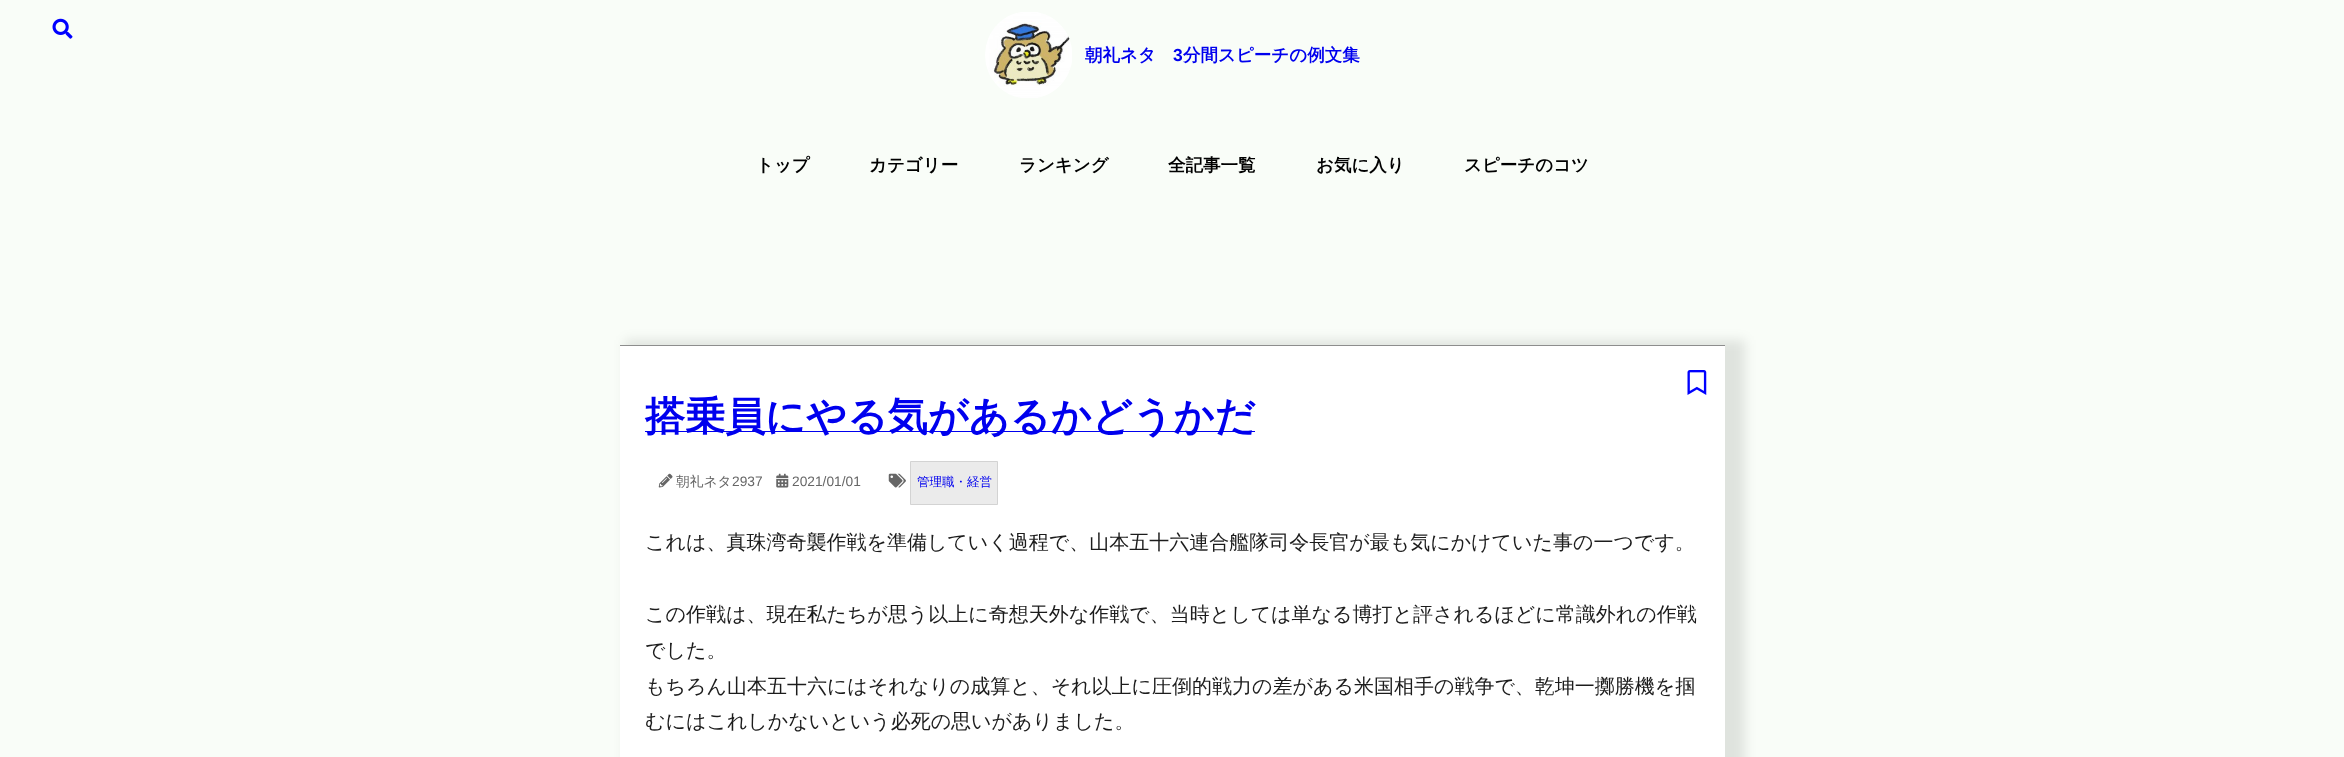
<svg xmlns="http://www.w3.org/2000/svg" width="2344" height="757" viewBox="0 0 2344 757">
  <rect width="100%" height="100%" fill="#f9fdf8"/>
  <image x="52" y="18" width="21" height="21" href="img/1.png"/>
  <image x="985" y="12" width="87" height="86" href="img/2.png"/>
  <path d="M625 340h1120v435H625z" fill="#0000001a" filter="blur(6px)"/>
  <path d="M620 346h1105v411H620z" fill="#fff"/>
  <path d="M620 345h1105v1H620z" fill="#8d8d8d"/>
  <path d="M645 431h610v1H645z" fill="#00e"/>
  <image x="1687" y="370" width="20" height="25" href="img/3.png"/>
  <image x="658" y="473" width="15" height="15" href="img/4.png"/>
  <image x="776" y="473" width="13" height="15" href="img/5.png"/>
  <image x="888" y="473" width="18" height="15" href="img/6.png"/>
  <path d="M910.5 461.5h87v43H910.5z" fill="#ebebeb" stroke="#d3d3d3"/>
  <text x="1085" y="61" font-family="WenQuanYi Zen Hei" font-size="17.5" font-weight="bold" fill="#00e">朝礼ネタ</text>
  <text x="1173" y="61" font-family="Liberation Sans" font-size="17.5" font-weight="bold" fill="#00e">3</text>
  <text x="1183" y="61" font-family="WenQuanYi Zen Hei" font-size="17.5" font-weight="bold" fill="#00e">分間スピーチの例文集</text>
  <g font-family="WenQuanYi Zen Hei" font-size="17.5" font-weight="bold" fill="#000">
    <text x="756" y="171">トップ</text>
    <text x="869" y="171">カテゴリー</text>
    <text x="1019" y="171">ランキング</text>
    <text x="1168" y="171">全記事一覧</text>
    <text x="1316" y="171">お気に入り</text>
    <text x="1464" y="171">スピーチのコツ</text>
  </g>
  <text x="645" y="430" font-family="WenQuanYi Zen Hei" font-size="40" font-weight="bold" fill="#00e">搭乗員にやる気があるかどうかだ</text>
  <text x="676" y="486" font-family="WenQuanYi Zen Hei" font-size="13.75" font-weight="500" fill="#666">朝礼ネタ</text>
  <g font-family="Liberation Sans" font-size="13.75" fill="#666">
    <text x="732" y="486">2937</text>
    <text x="792" y="486">2021/01/01</text>
  </g>
  <text x="917" y="486" font-family="WenQuanYi Zen Hei" font-size="12.5" font-weight="500" fill="#00e">管理職・経営</text>
  <g font-family="WenQuanYi Zen Hei" font-size="20" font-weight="500" fill="#1c1c1c">
    <text x="645" y="549">これは、真珠湾奇襲作戦を準備していく過程で、山本五十六連合艦隊司令長官が最も気にかけていた事の一つです。</text>
    <text x="645" y="621">この作戦は、現在私たちが思う以上に奇想天外な作戦で、当時としては単なる博打と評されるほどに常識外れの作戦</text>
    <text x="645" y="657">でした。</text>
    <text x="645" y="693">もちろん山本五十六にはそれなりの成算と、それ以上に圧倒的戦力の差がある米国相手の戦争で、乾坤一擲勝機を掴</text>
    <text x="645" y="728">むにはこれしかないという必死の思いがありました。</text>
  </g>
</svg>
